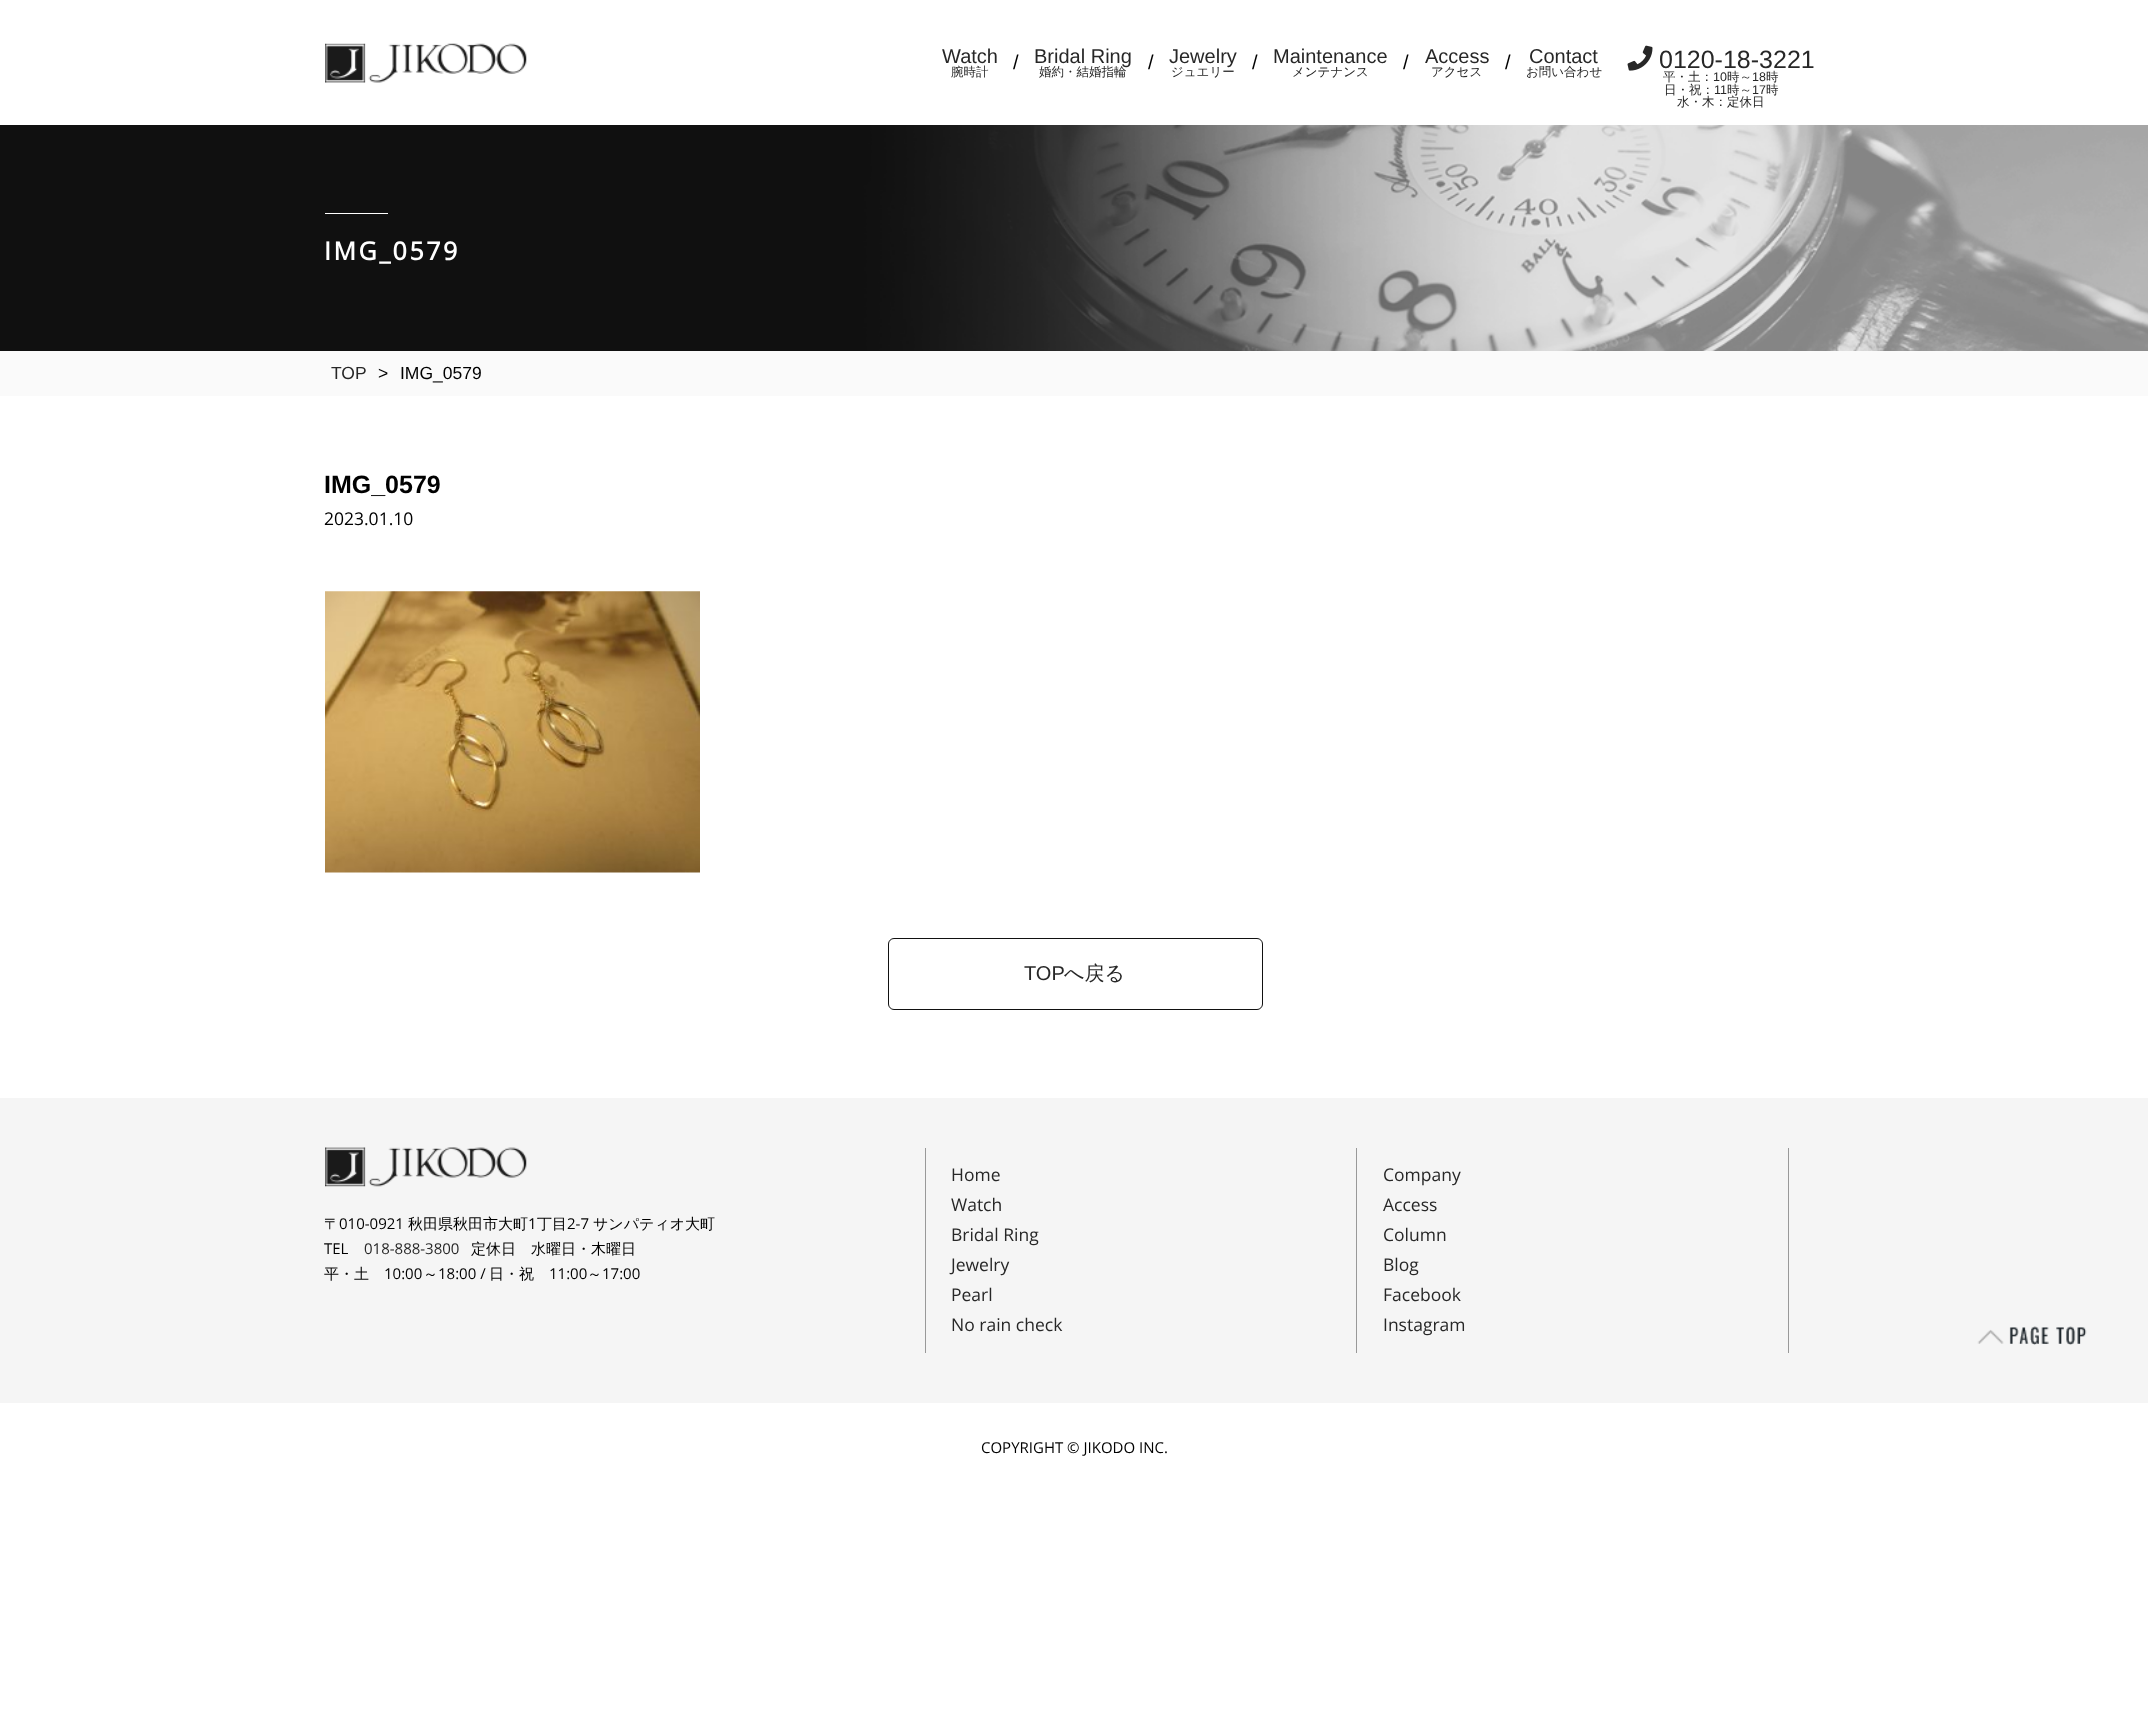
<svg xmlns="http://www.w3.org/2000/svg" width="2148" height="1720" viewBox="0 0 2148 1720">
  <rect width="100%" height="100%" fill="#fff"/>
  <image x="325" y="43" width="202" height="40" href="img/1.png"/>
  <image x="1627" y="45" width="26" height="26" href="img/2.png"/>
  <image x="0" y="125" width="2148" height="226" href="img/3.png"/>
  <path d="M325 213h63v1H325z" fill="#fff"/>
  <path d="M0 351h2148v45H0z" fill="#fafafa"/>
  <image x="325" y="591" width="375" height="282" href="img/4.png"/>
  <rect x="888.5" y="938.5" width="374" height="71" rx="5.5" fill="none" stroke="#111"/>
  <path d="M0 1098h2148v305H0z" fill="#f5f5f5"/>
  <image x="325" y="1147" width="202" height="40" href="img/5.png"/>
  <path d="M925 1148h1v205H925z" fill="#999"/>
  <path d="M1788 1148h1v205H1788z" fill="#999"/>
  <path d="M1356 1148h1v205H1356z" fill="#999"/>
  <image x="1977" y="1326" width="110" height="19" href="img/6.png"/>
  <text x="942" y="63" font-family="Liberation Sans" font-size="20" fill="#272727">Watch</text>
  <text x="951" y="76" font-family="WenQuanYi Zen Hei" font-size="12.5" font-weight="500" fill="#272727">腕時計</text>
  <text x="1013" y="69" font-family="Liberation Sans" font-size="20" fill="#000">/</text>
  <text x="1034" y="63" font-family="Liberation Sans" font-size="20" fill="#272727">Bridal Ring</text>
  <text x="1039" y="76" font-family="WenQuanYi Zen Hei" font-size="12.5" font-weight="500" fill="#272727">婚約・結婚指輪</text>
  <text x="1148" y="69" font-family="Liberation Sans" font-size="20" fill="#000">/</text>
  <text x="1169" y="63" font-family="Liberation Sans" font-size="20" fill="#272727">Jewelry</text>
  <text x="1171" y="76" font-family="WenQuanYi Zen Hei" font-size="12.5" font-weight="500" fill="#272727">ジュエリー</text>
  <text x="1252" y="69" font-family="Liberation Sans" font-size="20" fill="#000">/</text>
  <text x="1273" y="63" font-family="Liberation Sans" font-size="20" fill="#272727">Maintenance</text>
  <text x="1292" y="76" font-family="WenQuanYi Zen Hei" font-size="12.5" font-weight="500" fill="#272727">メンテナンス</text>
  <text x="1403" y="69" font-family="Liberation Sans" font-size="20" fill="#000">/</text>
  <text x="1425" y="63" font-family="Liberation Sans" font-size="20" fill="#272727">Access</text>
  <text x="1431" y="76" font-family="WenQuanYi Zen Hei" font-size="12.5" font-weight="500" fill="#272727">アクセス</text>
  <text x="1505" y="69" font-family="Liberation Sans" font-size="20" fill="#000">/</text>
  <text x="1529" y="63" font-family="Liberation Sans" font-size="20" fill="#272727">Contact</text>
  <text x="1526" y="76" font-family="WenQuanYi Zen Hei" font-size="12.5" font-weight="500" fill="#272727">お問い合わせ</text>
  <text x="1659" y="68" font-family="Liberation Sans" font-size="25" fill="#272727">0120-18-3221</text>
  <text x="1663" y="81" font-family="WenQuanYi Zen Hei" font-size="12.5" font-weight="500" fill="#272727">平・土：</text>
  <text x="1713" y="81" font-family="Liberation Sans" font-size="12.5" fill="#272727">10</text>
  <text x="1727" y="81" font-family="WenQuanYi Zen Hei" font-size="12.5" font-weight="500" fill="#272727">時～</text>
  <text x="1752" y="81" font-family="Liberation Sans" font-size="12.5" fill="#272727">18</text>
  <g font-family="WenQuanYi Zen Hei" font-size="12.5" font-weight="500" fill="#272727">
    <text x="1766" y="81">時</text>
    <text x="1664" y="94">日・祝：</text>
  </g>
  <text x="1714" y="94" font-family="Liberation Sans" font-size="12.5" fill="#272727">11</text>
  <text x="1727" y="94" font-family="WenQuanYi Zen Hei" font-size="12.5" font-weight="500" fill="#272727">時～</text>
  <text x="1752" y="94" font-family="Liberation Sans" font-size="12.5" fill="#272727">17</text>
  <g font-family="WenQuanYi Zen Hei" font-size="12.5" font-weight="500" fill="#272727">
    <text x="1766" y="94">時</text>
    <text x="1677" y="106">水・木：定休日</text>
  </g>
  <text x="324" y="260" font-family="Open Sans" font-size="25" font-weight="bold" letter-spacing="2.5" fill="#fff">IMG_0579</text>
  <text x="331" y="379" font-family="Liberation Sans" font-size="17.5" fill="#272727">TOP</text>
  <g font-family="Liberation Sans" font-size="17.5" fill="#000">
    <text x="378" y="379">&gt;</text>
    <text x="400" y="379">IMG_0579</text>
  </g>
  <text x="324" y="493" font-family="Liberation Sans" font-size="25" font-weight="bold" fill="#000">IMG_0579</text>
  <text x="324" y="525" font-family="Open Sans" font-size="17.5" fill="#000">2023.01.10</text>
  <text x="1024" y="980" font-family="Liberation Sans" font-size="20" fill="#272727">TOP</text>
  <text x="1064" y="980" font-family="WenQuanYi Zen Hei" font-size="20" font-weight="500" fill="#272727">へ戻る</text>
  <text x="324" y="1229" font-family="WenQuanYi Zen Hei" font-size="15" font-weight="500" fill="#000">〒</text>
  <text x="339" y="1229" font-family="Open Sans" font-size="15" fill="#000">010-0921</text>
  <text x="408" y="1229" font-family="WenQuanYi Zen Hei" font-size="15" font-weight="500" fill="#000">秋田県秋田市大町</text>
  <text x="528" y="1229" font-family="Open Sans" font-size="15" fill="#000">1</text>
  <text x="537" y="1229" font-family="WenQuanYi Zen Hei" font-size="15" font-weight="500" fill="#000">丁目</text>
  <text x="567" y="1229" font-family="Open Sans" font-size="15" fill="#000">2-7</text>
  <text x="593" y="1229" font-family="WenQuanYi Zen Hei" font-size="15" font-weight="500" fill="#000">サンパティオ大町</text>
  <text x="324" y="1254" font-family="Open Sans" font-size="15" fill="#000">TEL</text>
  <text x="364" y="1254" font-family="Open Sans" font-size="15" fill="#272727">018-888-3800</text>
  <g font-family="WenQuanYi Zen Hei" font-size="15" font-weight="500" fill="#000">
    <text x="471" y="1254">定休日　水曜日・木曜日</text>
    <text x="324" y="1279">平・土</text>
  </g>
  <text x="384" y="1279" font-family="Open Sans" font-size="15" fill="#000">10:00</text>
  <text x="423" y="1279" font-family="WenQuanYi Zen Hei" font-size="15" font-weight="500" fill="#000">～</text>
  <text x="438" y="1279" font-family="Open Sans" font-size="15" fill="#000">18:00 /</text>
  <text x="489" y="1279" font-family="WenQuanYi Zen Hei" font-size="15" font-weight="500" fill="#000">日・祝</text>
  <text x="549" y="1279" font-family="Open Sans" font-size="15" fill="#000">11:00</text>
  <text x="587" y="1279" font-family="WenQuanYi Zen Hei" font-size="15" font-weight="500" fill="#000">～</text>
  <text x="602" y="1279" font-family="Open Sans" font-size="15" fill="#000">17:00</text>
  <g font-family="Open Sans" font-size="17.5" fill="#272727">
    <text x="951" y="1181">Home</text>
    <text x="951" y="1211">Watch</text>
    <text x="951" y="1241">Bridal Ring</text>
    <text x="951" y="1271">Jewelry</text>
    <text x="951" y="1301">Pearl</text>
    <text x="951" y="1331">No rain check</text>
    <text x="1383" y="1181">Company</text>
    <text x="1383" y="1211">Access</text>
    <text x="1383" y="1241">Column</text>
    <text x="1383" y="1271">Blog</text>
    <text x="1383" y="1301">Facebook</text>
    <text x="1383" y="1331">Instagram</text>
  </g>
  <text x="981" y="1453" font-family="Open Sans" font-size="15" fill="#000">COPYRIGHT © JIKODO INC.</text>
</svg>
